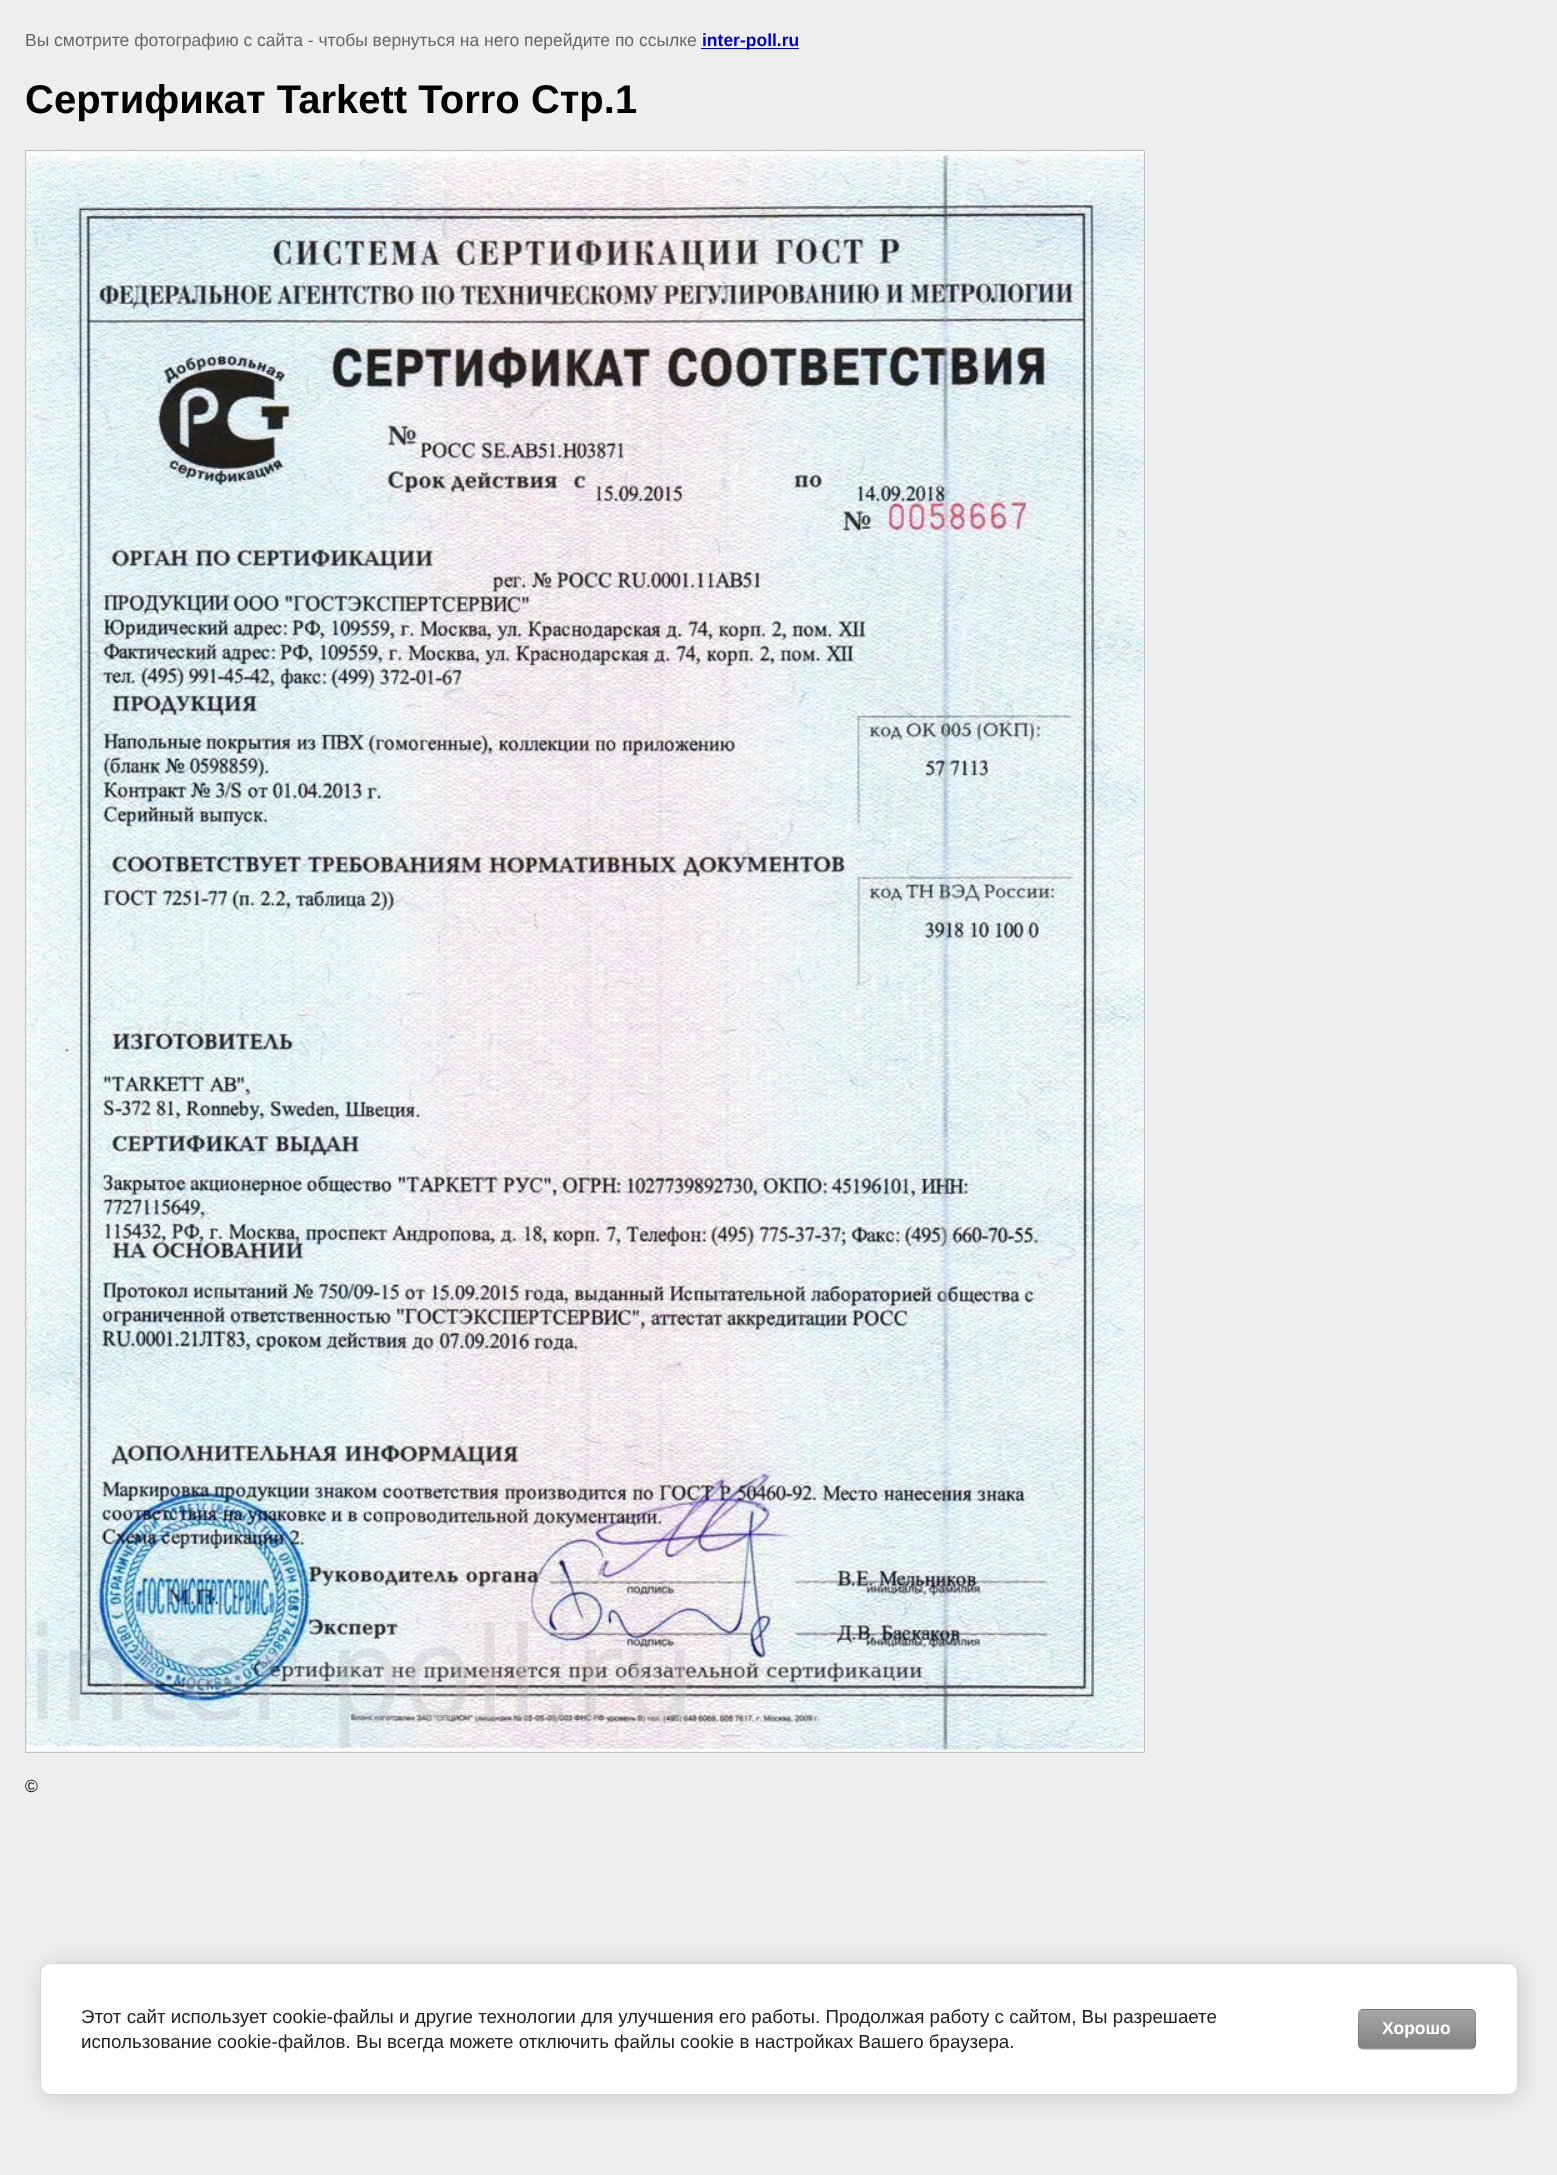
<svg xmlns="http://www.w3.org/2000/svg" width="1557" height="2175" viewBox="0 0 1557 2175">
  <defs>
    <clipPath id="clip1"><rect x="1358" y="2009" width="118" height="40" rx="5"/></clipPath>
    <linearGradient id="g1" gradientUnits="userSpaceOnUse" x1="1417" y1="1973" x2="1417" y2="2010"><stop offset="0" stop-color="#a8a8a8"/><stop offset="1" stop-color="#828282"/></linearGradient>
    <linearGradient id="g2" gradientUnits="userSpaceOnUse" x1="1417" y1="2010" x2="1417" y2="2048"><stop offset="0" stop-color="#a8a8a8"/><stop offset="1" stop-color="#828282"/></linearGradient>
    <linearGradient id="g3" gradientUnits="userSpaceOnUse" x1="1417" y1="2048" x2="1417" y2="2085"><stop offset="0" stop-color="#a8a8a8"/><stop offset="1" stop-color="#828282"/></linearGradient>
  </defs>
  <rect width="100%" height="100%" fill="#eee"/>
  <path d="M701 48h98v1H701z" fill="#00c"/>
  <path d="M25.5 150.5h1119v1602H25.5z" fill="none" stroke="#c0c0c0"/>
  <image x="26" y="151" width="1118" height="1601" href="img/1.png"/>
  <rect x="43" y="1965" width="1477" height="133" rx="10" fill="#00000024" filter="blur(11px)"/>
  <rect x="40.5" y="1963.5" width="1477" height="131" rx="9.5" fill="#fff" stroke="#d6d6d6"/>
  <rect x="1358" y="2010" width="118" height="40" rx="5" fill="#00000033" filter="blur(0.5px)"/>
  <g clip-path="url(#clip1)">
    <path d="M1358 2009h118v1H1358z" fill="url(#g1)"/>
    <path d="M1358 2010h118v38H1358z" fill="url(#g2)"/>
    <path d="M1358 2048h118v1H1358z" fill="url(#g3)"/>
  </g>
  <rect x="1358.5" y="2009.5" width="117" height="39" rx="4.5" fill="none" stroke="#0000001a"/>
  <text x="25" y="46" font-family="Liberation Sans" font-size="17.5" fill="#666">Вы смотрите фотографию с сайта - чтобы вернуться на него перейдите по ссылке</text>
  <text x="702" y="46" font-family="Liberation Sans" font-size="17.5" font-weight="bold" fill="#00c">inter-poll.ru</text>
  <text x="25" y="113" font-family="Liberation Sans" font-size="40" font-weight="bold" fill="#000">Сертификат Tarkett Torro Стр.1</text>
  <text x="25" y="1792" font-family="Liberation Sans" font-size="17.5" fill="#000">©</text>
  <g font-family="Liberation Sans" font-size="18.75" fill="#212121">
    <text x="81" y="2023">Этот сайт использует cookie-файлы и другие технологии для улучшения его работы. Продолжая работу с сайтом, Вы разрешаете</text>
    <text x="81" y="2048">использование cookie-файлов. Вы всегда можете отключить файлы cookie в настройках Вашего браузера.</text>
  </g>
  <text x="1382" y="2034" font-family="Liberation Sans" font-size="17.5" font-weight="bold" fill="#fff">Хорошо</text>
</svg>
